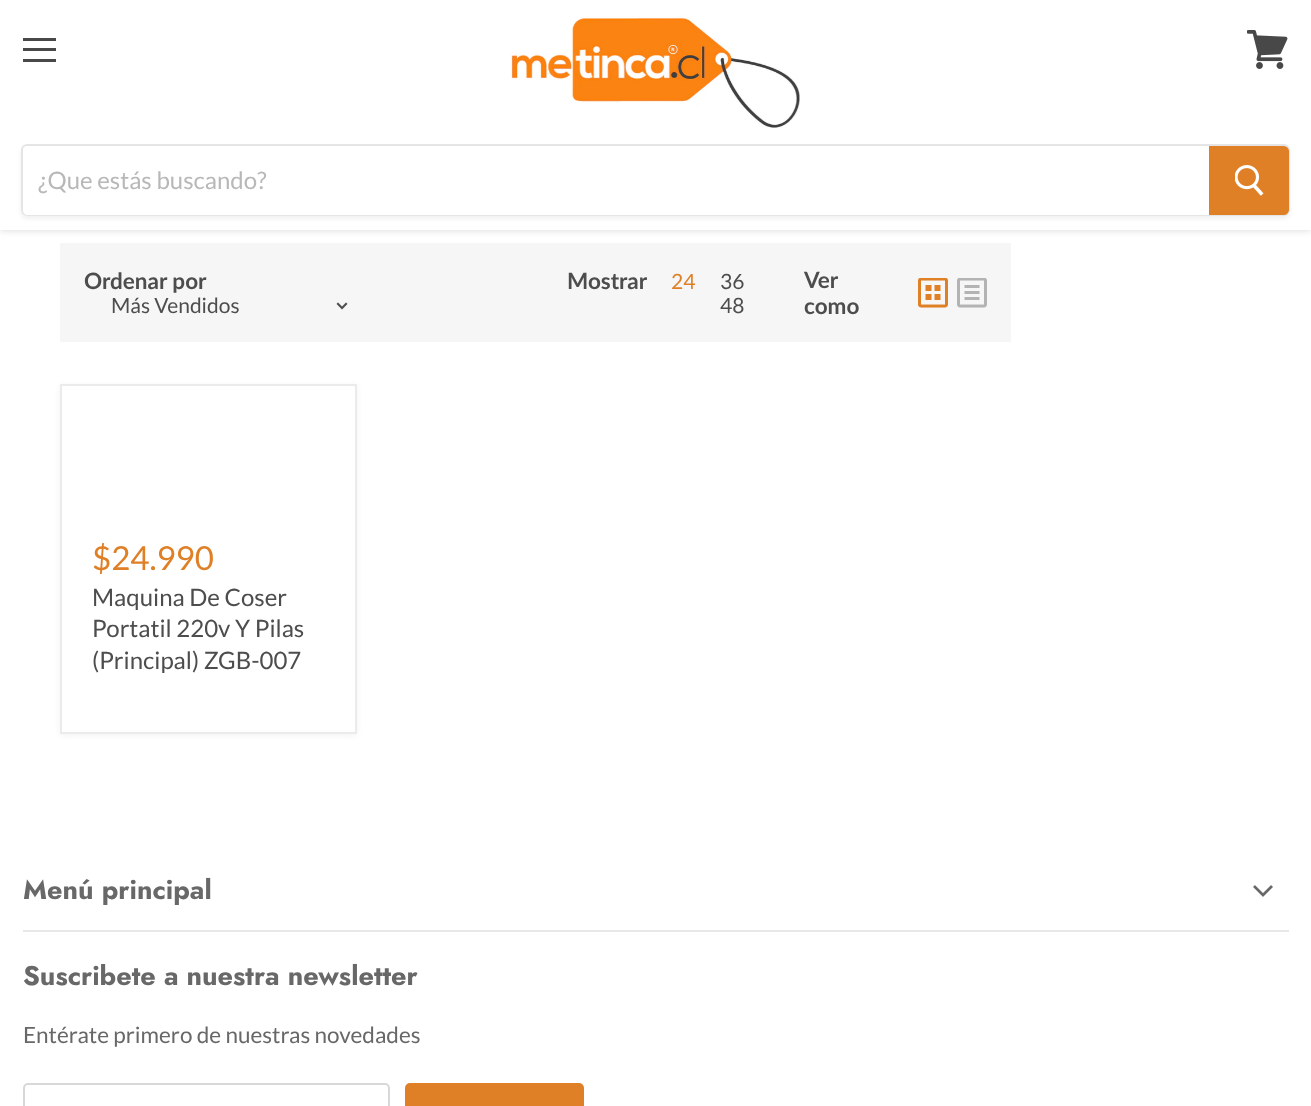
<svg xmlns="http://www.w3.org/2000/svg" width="1311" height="1106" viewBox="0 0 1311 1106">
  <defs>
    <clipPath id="clip1"><path d="M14 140H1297V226H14ZM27 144H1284C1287.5 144 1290 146.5 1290 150V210C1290 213.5 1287.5 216 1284 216H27C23.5 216 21 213.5 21 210V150C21 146.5 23.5 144 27 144Z" clip-rule="evenodd"/></clipPath>
  </defs>
  <rect width="100%" height="100%" fill="#fff"/>
  <path d="M0 2h1311v229H0z" fill="#7f7f7f40" filter="blur(3px)"/>
  <path d="M0 0h1311v230H0z" fill="#fff"/>
  <path d="M23 38h33v3H23z" fill="#484848"/>
  <path d="M23 48h33v3H23z" fill="#484848"/>
  <path d="M23 59h33v3H23z" fill="#484848"/>
  <image x="1247" y="30" width="41" height="39" href="img/1.png"/>
  <image x="510" y="15" width="290" height="113" href="img/2.png"/>
  <g clip-path="url(#clip1)">
    <rect x="21" y="147" width="1269" height="72" rx="6" fill="#7f7f7f1c" filter="blur(2px)"/>
  </g>
  <rect x="22" y="145" width="1267" height="70" rx="5" fill="none" stroke="#7f7f7f33" stroke-width="2"/>
  <path d="M28 146H1209V215H28C25 215 23 213 23 210V151C23 148 25 146 28 146Z" fill="#fff"/>
  <path d="M1210 147H1284C1286 147 1288 149 1288 151V210C1288 212 1286 214 1284 214H1210Z" fill="#df8027" stroke="#df8027" stroke-width="2"/>
  <image x="1235" y="165" width="29" height="31" href="img/3.png"/>
  <path d="M60 243h951v99H60z" fill="#f6f6f6"/>
  <image x="336" y="302" width="12" height="8" href="img/4.png"/>
  <image x="918" y="278" width="30" height="30" href="img/5.png"/>
  <image x="957" y="278" width="30" height="30" href="img/6.png"/>
  <path d="M60 386h297v349H60z" fill="#7f7f7f1c" filter="blur(3px)"/>
  <path d="M61 385h295v348H61z" fill="#fff" stroke="#ebebeb" stroke-width="2"/>
  <path d="M23 930h1266v2H23z" fill="#e8e8e8"/>
  <image x="1253" y="885" width="20" height="12" href="img/7.png"/>
  <rect x="24" y="1084" width="365" height="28" rx="4" fill="none" stroke="#d8d8d8" stroke-width="2"/>
  <rect x="406" y="1084" width="177" height="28" rx="4" fill="#df8027" stroke="#df8027" stroke-width="2"/>
  <text x="38" y="189" font-family="Lato" font-size="24" fill="#b8b8b8">¿Que estás buscando?</text>
  <text x="84" y="289" font-family="Lato" font-size="22.5" font-weight="bold" fill="#4d4d4d">Ordenar por</text>
  <text x="111" y="313" font-family="Lato" font-size="21" fill="#4d4d4d">Más Vendidos</text>
  <text x="567" y="289" font-family="Lato" font-size="22.5" font-weight="bold" fill="#4d4d4d">Mostrar</text>
  <text x="671" y="289" font-family="Lato" font-size="21" fill="#df8027">24</text>
  <g font-family="Lato" font-size="21" fill="#4d4d4d">
    <text x="720" y="289">36</text>
    <text x="720" y="313">48</text>
  </g>
  <g font-family="Lato" font-size="22.5" font-weight="bold" fill="#4d4d4d">
    <text x="804" y="288">Ver</text>
    <text x="804" y="314">como</text>
  </g>
  <text x="92" y="570" font-family="Lato" font-size="33" fill="#df8027">$24.990</text>
  <g font-family="Lato" font-size="24" fill="#4d4d4d">
    <text x="92" y="606">Maquina De Coser</text>
    <text x="92" y="637">Portatil 220v Y Pilas</text>
    <text x="92" y="669">(Principal) ZGB-007</text>
  </g>
  <g font-family="Jost" font-size="27" font-weight="bold" fill="#686868">
    <text x="23" y="899">Menú principal</text>
    <text x="23" y="985">Suscribete a nuestra newsletter</text>
  </g>
  <text x="23" y="1043" font-family="Lato" font-size="22.5" fill="#686868">Entérate primero de nuestras novedades</text>
</svg>
